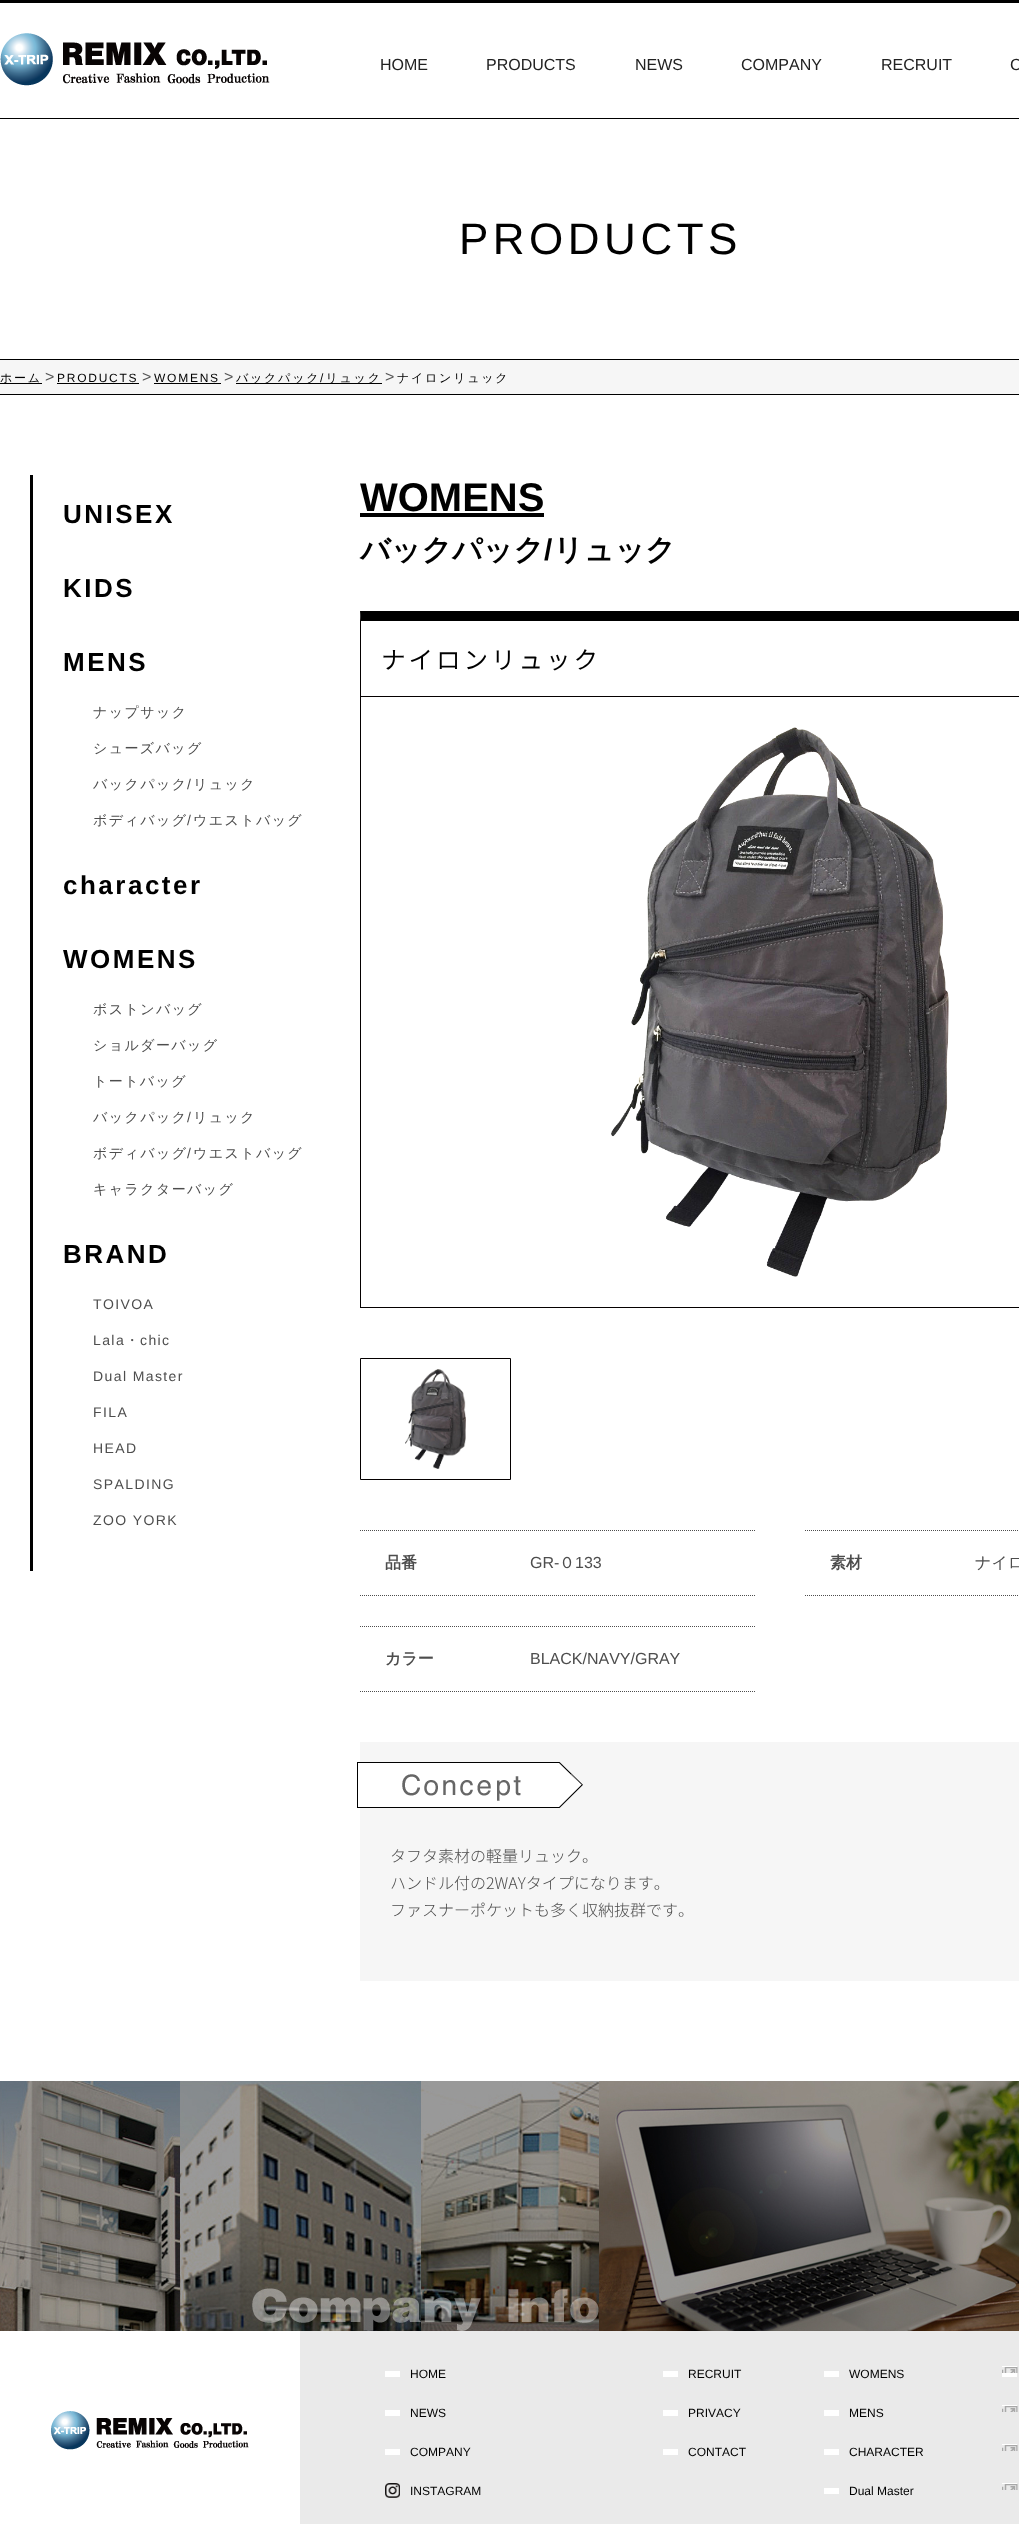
<svg xmlns="http://www.w3.org/2000/svg" width="1019" height="2524" viewBox="0 0 1019 2524">
  <style>*{font-kerning:none!important;font-variant-ligatures:none!important}</style>
  <rect width="100%" height="100%" fill="#fff"/>
  <path d="M0 0h1019v3H0z" fill="#000"/>
  <image x="0" y="33" width="270" height="53" href="img/1.png"/>
  <path d="M0 118h1019v1H0z" fill="#000"/>
  <path d="M0 360h1019v34H0z" fill="#f6f6f6"/>
  <path d="M0 359h1019v1H0z" fill="#000"/>
  <path d="M0 394h1019v1H0z" fill="#000"/>
  <path d="M0 383h42v1H0z" fill="#000"/>
  <path d="M57 383h82v1H57z" fill="#000"/>
  <path d="M154 383h67v1H154z" fill="#000"/>
  <path d="M236 383h146v1H236z" fill="#000"/>
  <path d="M30 475h3v1096H30z" fill="#000"/>
  <path d="M360 513h184v4H360z" fill="#000"/>
  <path d="M360 611H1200L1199 621H361Z" fill="#000"/>
  <path d="M360 696h659v1H360z" fill="#040000"/>
  <path d="M360 697V611L361 621V696Z" fill="#040000"/>
  <path d="M360 1307h659v1H360z" fill="#040000"/>
  <path d="M360 697h1v611H360z" fill="#040000"/>
  <image x="611" y="727" width="338" height="550" href="img/2.png"/>
  <path d="M360.5 1358.5h150v121H360.5z" fill="none" stroke="#040000"/>
  <image x="405" y="1369" width="61" height="100" href="img/3.png"/>
  <path d="M360 1530.5H755" fill="none" stroke="#4d4d4d" stroke-dasharray="1 1"/>
  <path d="M360 1595.5H755" fill="none" stroke="#4d4d4d" stroke-dasharray="1 1"/>
  <path d="M805 1530.5H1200" fill="none" stroke="#4d4d4d" stroke-dasharray="1 1"/>
  <path d="M805 1595.5H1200" fill="none" stroke="#4d4d4d" stroke-dasharray="1 1"/>
  <path d="M360 1626.5H755" fill="none" stroke="#4d4d4d" stroke-dasharray="1 1"/>
  <path d="M360 1691.5H755" fill="none" stroke="#4d4d4d" stroke-dasharray="1 1"/>
  <path d="M360 1742h659v239H360z" fill="#f6f6f6"/>
  <image x="357" y="1762" width="226" height="46" href="img/4.png"/>
  <image x="0" y="2081" width="599" height="250" href="img/5.png"/>
  <image x="599" y="2081" width="420" height="250" href="img/6.png"/>
  <image x="51" y="2411" width="198" height="39" href="img/7.png"/>
  <path d="M300 2331h719v193H300z" fill="#eaeaea"/>
  <path d="M385 2371h15v6H385z" fill="#fff"/>
  <path d="M385 2410h15v6H385z" fill="#fff"/>
  <path d="M385 2449h15v6H385z" fill="#fff"/>
  <image x="385" y="2483" width="15" height="15" href="img/8.png"/>
  <path d="M663 2371h15v6H663z" fill="#fff"/>
  <path d="M663 2410h15v6H663z" fill="#fff"/>
  <path d="M663 2449h15v6H663z" fill="#fff"/>
  <path d="M824 2371h15v6H824z" fill="#fff"/>
  <path d="M824 2410h15v6H824z" fill="#fff"/>
  <path d="M824 2449h15v6H824z" fill="#fff"/>
  <path d="M824 2488h15v6H824z" fill="#fff"/>
  <path d="M1002 2366h15v1H1002z" fill="#fff"/>
  <image x="1002" y="2367" width="16" height="6" href="img/9.png"/>
  <path d="M1002 2405h15v1H1002z" fill="#fff"/>
  <image x="1002" y="2406" width="16" height="6" href="img/9.png"/>
  <path d="M1002 2444h15v1H1002z" fill="#fff"/>
  <image x="1002" y="2445" width="16" height="6" href="img/9.png"/>
  <path d="M1002 2483h15v1H1002z" fill="#fff"/>
  <image x="1002" y="2484" width="16" height="6" href="img/9.png"/>
  <path d="M1002 2373h15v4H1002z" fill="#fff"/>
  <g font-family="Liberation Sans" font-size="16" fill="#222">
    <text x="380" y="70">HOME</text>
    <text x="486" y="70">PRODUCTS</text>
    <text x="635" y="70">NEWS</text>
    <text x="741" y="70">COMPANY</text>
    <text x="881" y="70">RECRUIT</text>
    <text x="1010" y="70">C</text>
  </g>
  <text x="459" y="254" font-family="Liberation Sans" font-size="44" letter-spacing="4.5" fill="#000">PRODUCTS</text>
  <text x="0" y="382" font-family="WenQuanYi Zen Hei" font-size="12" font-weight="500" letter-spacing="1.75" fill="#000">ホーム</text>
  <text x="45" y="382" font-family="Liberation Sans" font-size="16" fill="#555">&gt;</text>
  <text x="57" y="382" font-family="Liberation Sans" font-size="12" letter-spacing="1.75" fill="#000">PRODUCTS</text>
  <text x="142" y="382" font-family="Liberation Sans" font-size="16" fill="#555">&gt;</text>
  <text x="154" y="382" font-family="Liberation Sans" font-size="12" letter-spacing="1.75" fill="#000">WOMENS</text>
  <text x="224" y="382" font-family="Liberation Sans" font-size="16" fill="#555">&gt;</text>
  <text x="236" y="382" font-family="WenQuanYi Zen Hei" font-size="12" font-weight="500" letter-spacing="1.75" fill="#000">バックパック リュック</text>
  <text x="385" y="382" font-family="Liberation Sans" font-size="16" fill="#555">&gt;</text>
  <text x="320" y="382" font-family="Liberation Sans" font-size="12" letter-spacing="1.75" fill="#000">/</text>
  <text x="397" y="382" font-family="WenQuanYi Zen Hei" font-size="12" font-weight="500" letter-spacing="1.75" fill="#000">ナイロンリュック</text>
  <g font-family="Liberation Sans" font-size="26" font-weight="bold" letter-spacing="2.5" fill="#000">
    <text x="63" y="523">UNISEX</text>
    <text x="63" y="597">KIDS</text>
    <text x="63" y="671">MENS</text>
  </g>
  <g font-family="WenQuanYi Zen Hei" font-size="14" font-weight="500" letter-spacing="1.4" fill="#4d4d4d">
    <text x="93" y="717">ナップサック</text>
    <text x="93" y="753">シューズバッグ</text>
    <text x="93" y="789">バックパック</text>
  </g>
  <text x="187" y="789" font-family="Liberation Sans" font-size="14" letter-spacing="1.4" fill="#4d4d4d">/</text>
  <g font-family="WenQuanYi Zen Hei" font-size="14" font-weight="500" letter-spacing="1.4" fill="#4d4d4d">
    <text x="193" y="789">リュック</text>
    <text x="93" y="825">ボディバッグ</text>
  </g>
  <text x="187" y="825" font-family="Liberation Sans" font-size="14" letter-spacing="1.4" fill="#4d4d4d">/</text>
  <text x="193" y="825" font-family="WenQuanYi Zen Hei" font-size="14" font-weight="500" letter-spacing="1.4" fill="#4d4d4d">ウエストバッグ</text>
  <g font-family="Liberation Sans" font-size="26" font-weight="bold" letter-spacing="2.5" fill="#000">
    <text x="63" y="894">character</text>
    <text x="63" y="968">WOMENS</text>
  </g>
  <g font-family="WenQuanYi Zen Hei" font-size="14" font-weight="500" letter-spacing="1.4" fill="#4d4d4d">
    <text x="93" y="1014">ボストンバッグ</text>
    <text x="93" y="1050">ショルダーバッグ</text>
    <text x="93" y="1086">トートバッグ</text>
    <text x="93" y="1122">バックパック</text>
  </g>
  <text x="187" y="1122" font-family="Liberation Sans" font-size="14" letter-spacing="1.4" fill="#4d4d4d">/</text>
  <g font-family="WenQuanYi Zen Hei" font-size="14" font-weight="500" letter-spacing="1.4" fill="#4d4d4d">
    <text x="193" y="1122">リュック</text>
    <text x="93" y="1158">ボディバッグ</text>
  </g>
  <text x="187" y="1158" font-family="Liberation Sans" font-size="14" letter-spacing="1.4" fill="#4d4d4d">/</text>
  <g font-family="WenQuanYi Zen Hei" font-size="14" font-weight="500" letter-spacing="1.4" fill="#4d4d4d">
    <text x="193" y="1158">ウエストバッグ</text>
    <text x="93" y="1194">キャラクターバッグ</text>
  </g>
  <text x="63" y="1263" font-family="Liberation Sans" font-size="26" font-weight="bold" letter-spacing="2.5" fill="#000">BRAND</text>
  <g font-family="Liberation Sans" font-size="14" letter-spacing="1.4" fill="#4d4d4d">
    <text x="93" y="1309">TOIVOA</text>
    <text x="93" y="1345">Lala</text>
  </g>
  <text x="125" y="1345" font-family="WenQuanYi Zen Hei" font-size="14" font-weight="500" letter-spacing="1.4" fill="#4d4d4d">・</text>
  <g font-family="Liberation Sans" font-size="14" letter-spacing="1.4" fill="#4d4d4d">
    <text x="140" y="1345">chic</text>
    <text x="93" y="1381">Dual Master</text>
    <text x="93" y="1417">FILA</text>
    <text x="93" y="1453">HEAD</text>
    <text x="93" y="1489">SPALDING</text>
    <text x="93" y="1525">ZOO YORK</text>
  </g>
  <text x="360" y="511" font-family="Liberation Sans" font-size="40" font-weight="bold" fill="#000">WOMENS</text>
  <text x="360" y="560" font-family="WenQuanYi Zen Hei" font-size="30" font-weight="bold" fill="#000">バックパック</text>
  <text x="544" y="560" font-family="Liberation Sans" font-size="30" font-weight="bold" fill="#000">/</text>
  <text x="553" y="560" font-family="WenQuanYi Zen Hei" font-size="30" font-weight="bold" fill="#000">リュック</text>
  <text x="381" y="669" font-family="Noto Sans JP" font-size="24" font-weight="bold" letter-spacing="3.5" fill="#000">ナイロンリュック</text>
  <text x="385" y="1568" font-family="WenQuanYi Zen Hei" font-size="16" font-weight="bold" fill="#4d4d4d">品番</text>
  <text x="530" y="1568" font-family="Liberation Sans" font-size="16" fill="#4d4d4d">GR-</text>
  <text x="559" y="1568" font-family="WenQuanYi Zen Hei" font-size="16" font-weight="500" fill="#4d4d4d">０</text>
  <text x="575" y="1568" font-family="Liberation Sans" font-size="16" fill="#4d4d4d">133</text>
  <text x="830" y="1568" font-family="WenQuanYi Zen Hei" font-size="16" font-weight="bold" fill="#4d4d4d">素材</text>
  <text x="975" y="1568" font-family="WenQuanYi Zen Hei" font-size="16" font-weight="500" fill="#4d4d4d">ナイロ</text>
  <text x="385" y="1664" font-family="WenQuanYi Zen Hei" font-size="16" font-weight="bold" fill="#4d4d4d">カラー</text>
  <text x="530" y="1664" font-family="Liberation Sans" font-size="16" fill="#4d4d4d">BLACK/NAVY/GRAY</text>
  <g font-family="Noto Sans JP" font-size="16" font-weight="300" fill="#4d4d4d">
    <text x="390" y="1862">タフタ素材の軽量リュック。</text>
    <text x="390" y="1889">ハンドル付の2WAYタイプになります。</text>
    <text x="390" y="1916">ファスナーポケットも多く収納抜群です。</text>
  </g>
  <g font-family="Liberation Sans" font-size="12" fill="#000">
    <text x="410" y="2378">HOME</text>
    <text x="410" y="2417">NEWS</text>
    <text x="410" y="2456">COMPANY</text>
    <text x="410" y="2495">INSTAGRAM</text>
    <text x="688" y="2378">RECRUIT</text>
    <text x="688" y="2417">PRIVACY</text>
    <text x="688" y="2456">CONTACT</text>
    <text x="849" y="2378">WOMENS</text>
    <text x="849" y="2417">MENS</text>
    <text x="849" y="2456">CHARACTER</text>
    <text x="849" y="2495">Dual Master</text>
  </g>
</svg>
